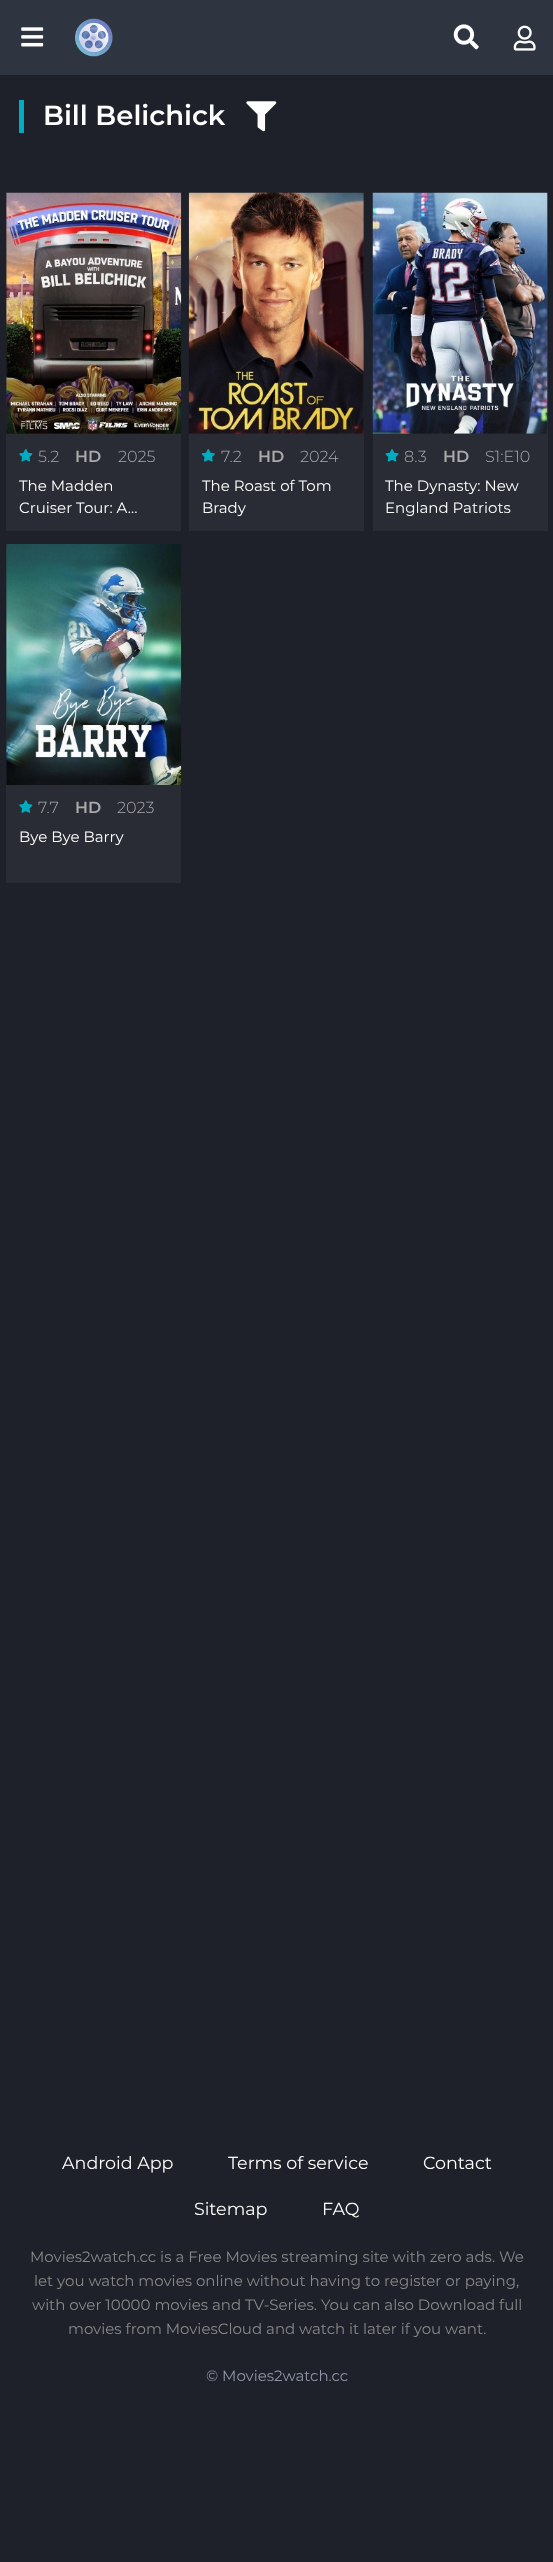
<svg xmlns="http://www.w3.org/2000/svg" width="553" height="2562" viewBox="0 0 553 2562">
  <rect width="100%" height="100%" fill="#1e2129"/>
  <path d="M0 0h553v75H0z" fill="#2f3441"/>
  <image x="21" y="27" width="23" height="20" href="img/1.png"/>
  <image x="75" y="18" width="38" height="39" href="img/2.png"/>
  <image x="453" y="24" width="26" height="26" href="img/3.png"/>
  <image x="513" y="25" width="23" height="26" href="img/4.png"/>
  <path d="M19 100h5v33H19z" fill="#00acc1"/>
  <image x="246" y="101" width="31" height="31" href="img/5.png"/>
  <path d="M6 193h175v338H6z" fill="#292c34"/>
  <image x="6" y="192" width="176" height="242" href="img/6.png"/>
  <image x="19" y="449" width="14" height="13" href="img/7.png"/>
  <path d="M189 193h175v338H189z" fill="#292c34"/>
  <image x="188" y="192" width="176" height="242" href="img/8.png"/>
  <image x="201" y="449" width="14" height="13" href="img/9.png"/>
  <path d="M373 193h175v338H373z" fill="#292c34"/>
  <image x="372" y="192" width="176" height="242" href="img/10.png"/>
  <image x="385" y="449" width="14" height="13" href="img/11.png"/>
  <path d="M6 544h175v339H6z" fill="#292c34"/>
  <image x="6" y="544" width="176" height="241" href="img/12.png"/>
  <image x="19" y="800" width="14" height="13" href="img/13.png"/>
  <text x="43" y="125" font-family="Montserrat" font-size="27.5" font-weight="600" fill="#fff">Bill Belichick</text>
  <text x="38" y="462" font-family="Montserrat" font-size="16" font-weight="300" fill="#aaa">5.2</text>
  <text x="75" y="462" font-family="Montserrat" font-size="16" font-weight="600" fill="#aaa">HD</text>
  <text x="118" y="462" font-family="Montserrat" font-size="16" font-weight="300" fill="#aaa">2025</text>
  <g font-family="Montserrat" font-size="15" fill="#fff">
    <text x="19" y="491">The Madden</text>
    <text x="19" y="513">Cruiser Tour: A…</text>
  </g>
  <text x="221" y="462" font-family="Montserrat" font-size="16" font-weight="300" fill="#aaa">7.2</text>
  <text x="258" y="462" font-family="Montserrat" font-size="16" font-weight="600" fill="#aaa">HD</text>
  <text x="300" y="462" font-family="Montserrat" font-size="16" font-weight="300" fill="#aaa">2024</text>
  <g font-family="Montserrat" font-size="15" fill="#fff">
    <text x="202" y="491">The Roast of Tom</text>
    <text x="202" y="513">Brady</text>
  </g>
  <text x="404" y="462" font-family="Montserrat" font-size="16" font-weight="300" fill="#aaa">8.3</text>
  <text x="443" y="462" font-family="Montserrat" font-size="16" font-weight="600" fill="#aaa">HD</text>
  <text x="485" y="462" font-family="Montserrat" font-size="16" font-weight="300" fill="#aaa">S1:E10</text>
  <g font-family="Montserrat" font-size="15" fill="#fff">
    <text x="385" y="491">The Dynasty: New</text>
    <text x="385" y="513">England Patriots</text>
  </g>
  <text x="38" y="813" font-family="Montserrat" font-size="16" font-weight="300" fill="#aaa">7.7</text>
  <text x="75" y="813" font-family="Montserrat" font-size="16" font-weight="600" fill="#aaa">HD</text>
  <text x="117" y="813" font-family="Montserrat" font-size="16" font-weight="300" fill="#aaa">2023</text>
  <text x="19" y="842" font-family="Montserrat" font-size="15" fill="#fff">Bye Bye Barry</text>
  <g font-family="Montserrat" font-size="17.5" fill="#fff">
    <text x="62" y="2169">Android App</text>
    <text x="228" y="2169">Terms of service</text>
    <text x="423" y="2169">Contact</text>
    <text x="194" y="2215">Sitemap</text>
    <text x="322" y="2215">FAQ</text>
  </g>
  <g font-family="Montserrat" font-size="15" fill="#888">
    <text x="30" y="2262">Movies2watch.cc is a Free Movies streaming site with zero ads. We</text>
    <text x="34" y="2286">let you watch movies online without having to register or paying,</text>
    <text x="32" y="2310">with over 10000 movies and TV-Series. You can also Download full</text>
    <text x="68" y="2334">movies from MoviesCloud and watch it later if you want.</text>
  </g>
  <text x="206" y="2381" font-family="Montserrat" font-size="15" fill="#8e95a5">© Movies2watch.cc</text>
</svg>
